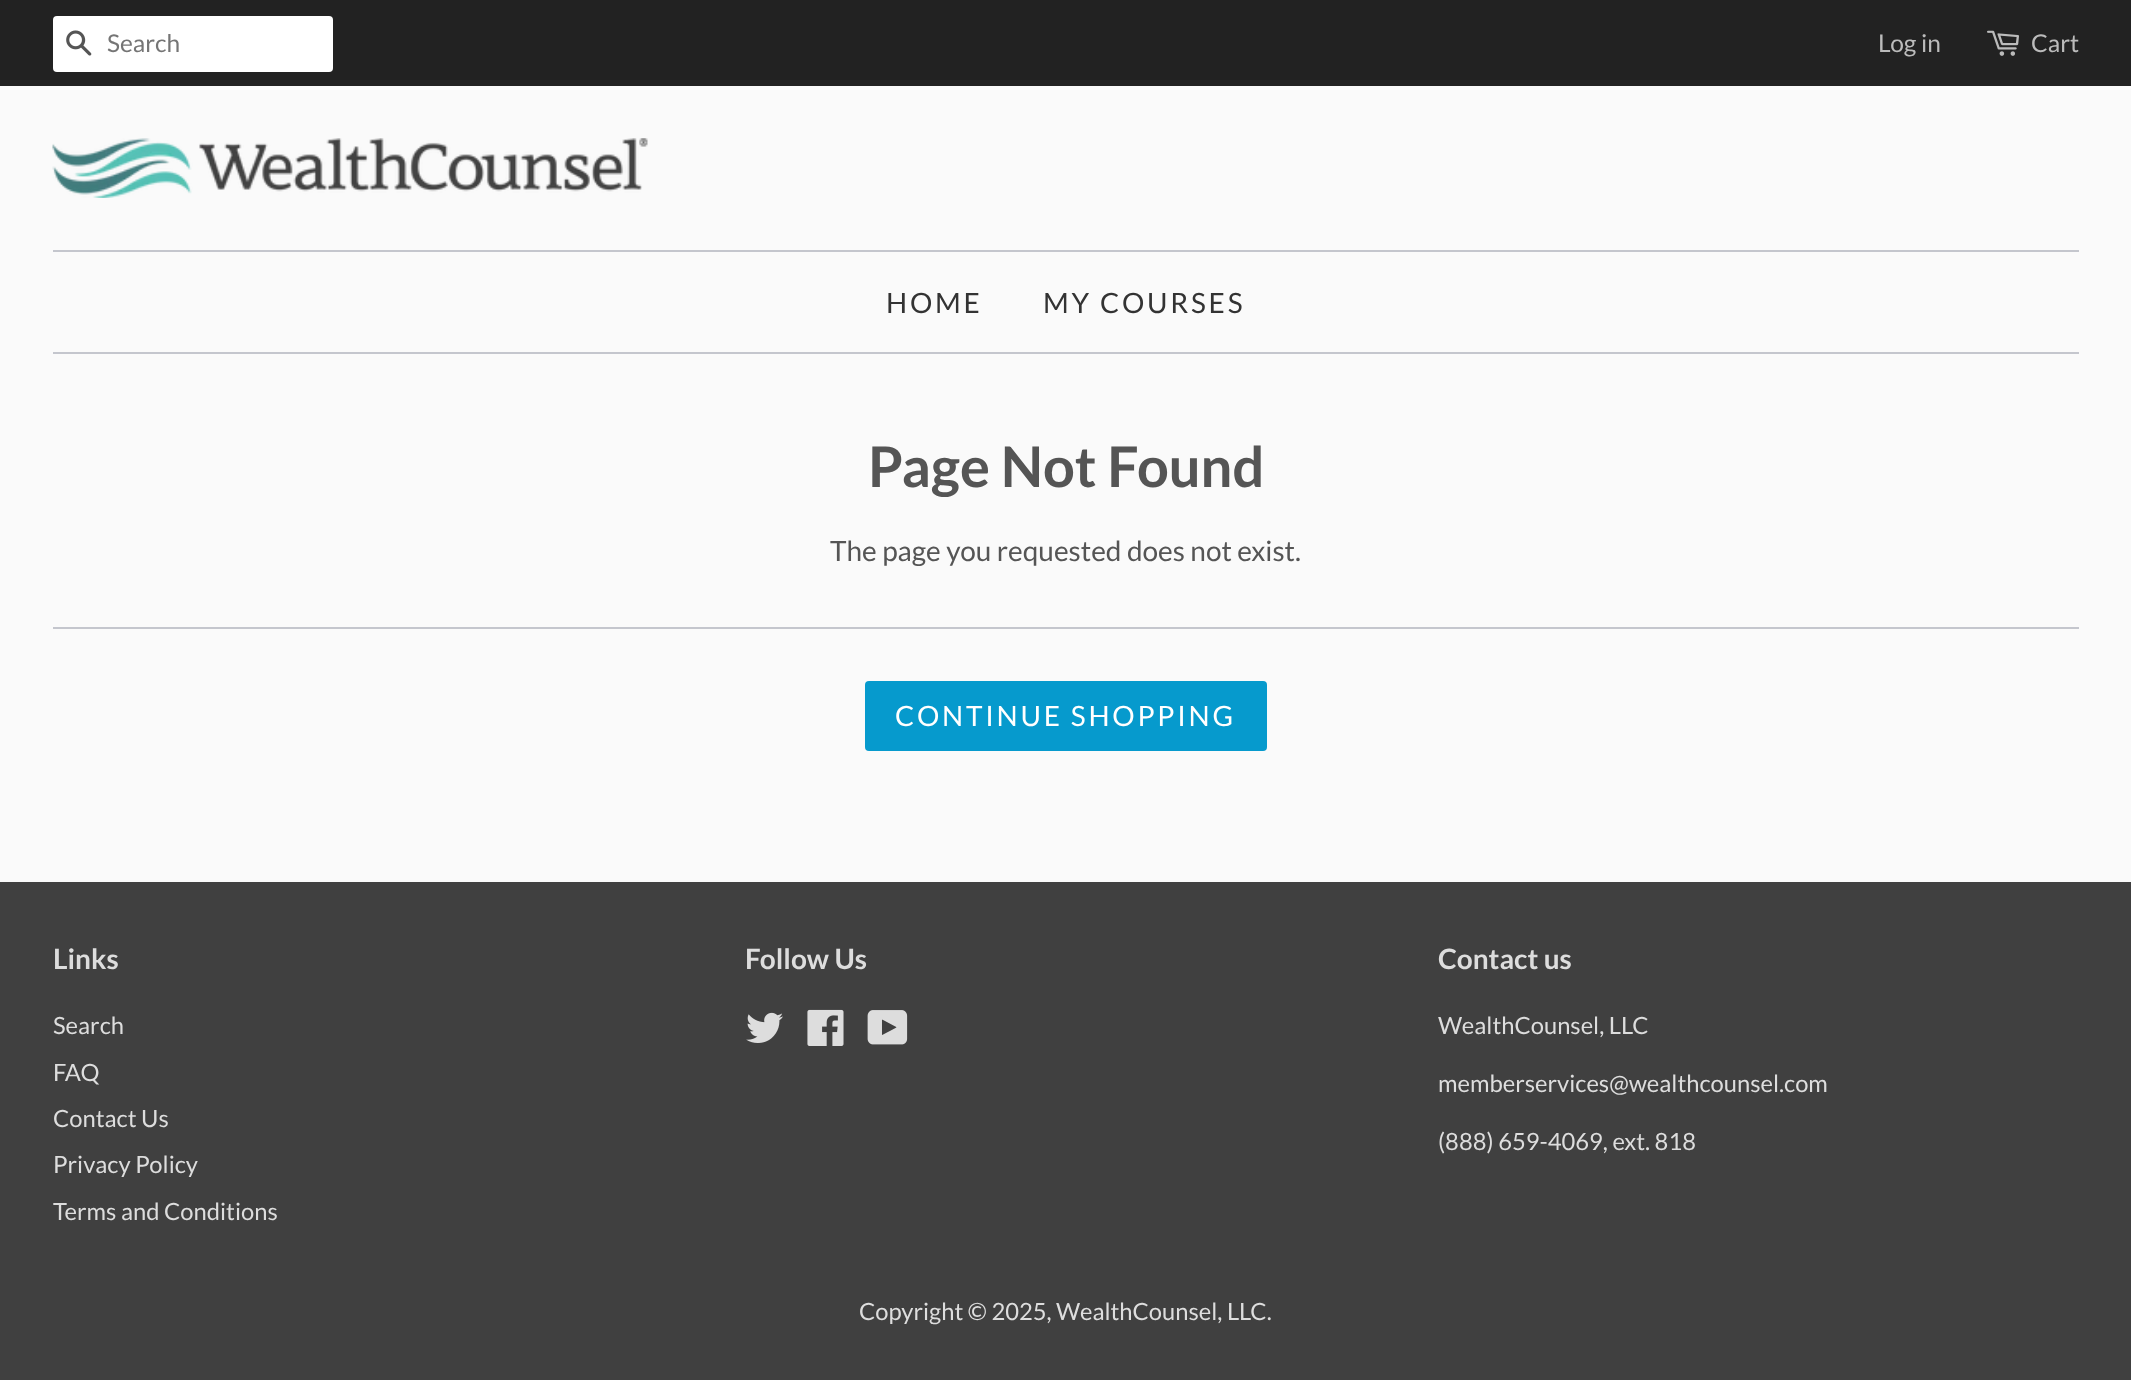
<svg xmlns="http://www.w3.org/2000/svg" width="2131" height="1380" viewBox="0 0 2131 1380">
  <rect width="100%" height="100%" fill="#fafafa"/>
  <path d="M0 0h2131v86H0z" fill="#222"/>
  <rect x="53" y="16" width="280" height="56" rx="4" fill="#fff"/>
  <image x="66" y="30" width="26" height="26" href="img/1.png"/>
  <image x="1987" y="30" width="32" height="26" href="img/2.png"/>
  <image x="52" y="138" width="596" height="60" href="img/3.png"/>
  <path d="M53 250h2026v2H53z" fill="#c4c6cd"/>
  <path d="M53 352h2026v2H53z" fill="#c4c6cd"/>
  <path d="M53 627h2026v2H53z" fill="#c4c6cd"/>
  <rect x="865" y="681" width="402" height="70" rx="4" fill="#069acd"/>
  <path d="M0 882h2131v498H0z" fill="#404040"/>
  <image x="746" y="1012" width="37" height="31" href="img/4.png"/>
  <image x="807" y="1009" width="37" height="37" href="img/5.png"/>
  <image x="867" y="1010" width="41" height="35" href="img/6.png"/>
  <text x="107" y="52" font-family="Lato" font-size="24.5" fill="#757575">Search</text>
  <g font-family="Lato" font-size="24.5" fill="#bbb">
    <text x="1878" y="52">Log in</text>
    <text x="2031" y="52">Cart</text>
  </g>
  <g font-family="Lato" font-size="28" letter-spacing="2.75" fill="#333">
    <text x="886" y="313">HOME</text>
    <text x="1043" y="313">MY COURSES</text>
  </g>
  <text x="868" y="487" font-family="Lato" font-size="56" font-weight="bold" fill="#555">Page Not Found</text>
  <text x="830" y="561" font-family="Lato" font-size="28" fill="#555">The page you requested does not exist.</text>
  <text x="895" y="726" font-family="Lato" font-size="28" letter-spacing="2.75" fill="#fff">CONTINUE SHOPPING</text>
  <text x="53" y="969" font-family="Lato" font-size="28" font-weight="bold" fill="#ddd">Links</text>
  <g font-family="Lato" font-size="23.75" fill="#ddd">
    <text x="53" y="1034">Search</text>
    <text x="53" y="1081">FAQ</text>
    <text x="53" y="1127">Contact Us</text>
    <text x="53" y="1173">Privacy Policy</text>
    <text x="53" y="1220">Terms and Conditions</text>
  </g>
  <g font-family="Lato" font-size="28" font-weight="bold" fill="#ddd">
    <text x="745" y="969">Follow Us</text>
    <text x="1438" y="969">Contact us</text>
  </g>
  <g font-family="Lato" font-size="23.75" fill="#ddd">
    <text x="1438" y="1034">WealthCounsel, LLC</text>
    <text x="1438" y="1092">memberservices@wealthcounsel.com</text>
    <text x="1438" y="1150">(888) 659-4069, ext. 818</text>
    <text x="859" y="1320">Copyright © 2025, WealthCounsel, LLC.</text>
  </g>
</svg>
